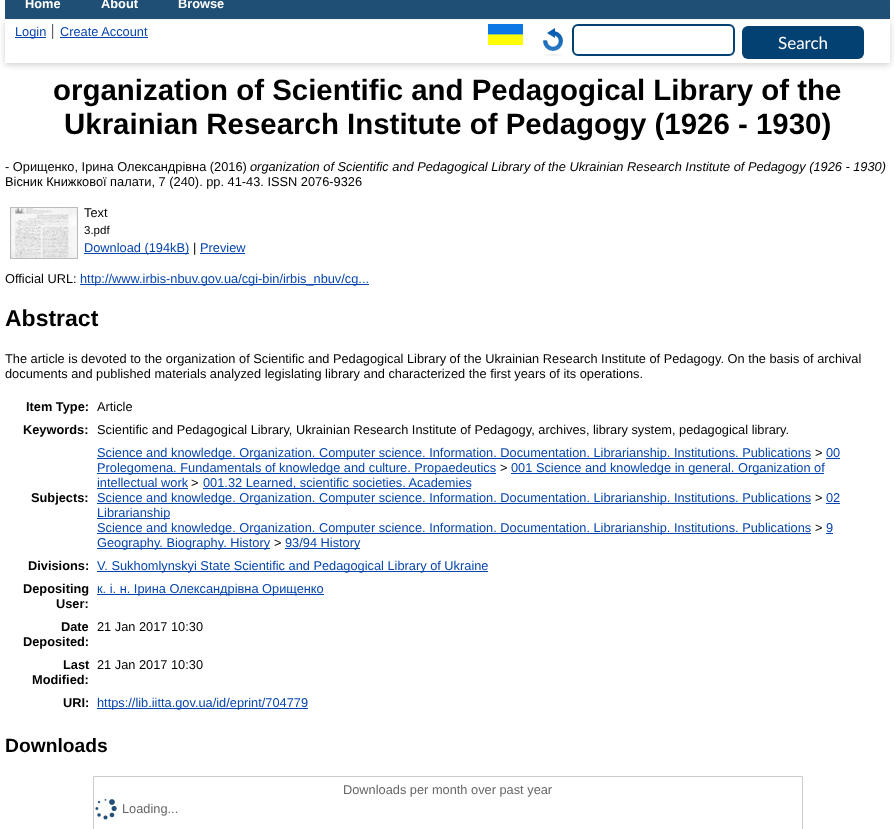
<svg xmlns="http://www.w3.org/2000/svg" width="895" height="829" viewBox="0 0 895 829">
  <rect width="100%" height="100%" fill="#fff"/>
  <path d="M5 0h885v19H5z" fill="#204f76"/>
  <path d="M5 22h885v43H5z" fill="#6464644d" filter="blur(3px)"/>
  <path d="M5 20h885v43H5z" fill="#fff"/>
  <path d="M52 24h1v15H52z" fill="#606060"/>
  <path d="M15 37h31v1H15z" fill="#0645ad"/>
  <path d="M53 24h1v15H53z" fill="#e8e8e8"/>
  <path d="M60 37h88v1H60z" fill="#0645ad"/>
  <image x="488" y="24" width="35" height="21" href="img/1.png"/>
  <image x="543" y="28" width="20" height="28" href="img/2.png"/>
  <rect x="573" y="25" width="161" height="30" rx="5" fill="none" stroke="#044173" stroke-width="2"/>
  <rect x="742" y="26" width="122" height="33" rx="6" fill="#044173"/>
  <image x="10" y="207" width="68" height="52" href="img/3.png"/>
  <path d="M84 253h105v1H84z" fill="#0645ad"/>
  <path d="M200 253h45v1H200z" fill="#0645ad"/>
  <path d="M80 284h289v1H80z" fill="#0645ad"/>
  <path d="M97 458h714v1H97z" fill="#0645ad"/>
  <path d="M826 458h14v1H826z" fill="#0645ad"/>
  <path d="M97 473h399v1H97z" fill="#0645ad"/>
  <path d="M511 473h313v1H511z" fill="#0645ad"/>
  <path d="M97 488h91v1H97z" fill="#0645ad"/>
  <path d="M203 488h268v1H203z" fill="#0645ad"/>
  <path d="M97 503h714v1H97z" fill="#0645ad"/>
  <path d="M826 503h14v1H826z" fill="#0645ad"/>
  <path d="M97 518h73v1H97z" fill="#0645ad"/>
  <path d="M97 533h714v1H97z" fill="#0645ad"/>
  <path d="M826 533h7v1H826z" fill="#0645ad"/>
  <path d="M97 548h173v1H97z" fill="#0645ad"/>
  <path d="M285 548h75v1H285z" fill="#0645ad"/>
  <path d="M97 571h391v1H97z" fill="#0645ad"/>
  <path d="M97 594h227v1H97z" fill="#0645ad"/>
  <path d="M97 708h211v1H97z" fill="#0645ad"/>
  <path d="M93.5 776.5h709v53H93.5z" fill="none" stroke="#ccc"/>
  <image x="95" y="798" width="22" height="22" href="img/4.png"/>
  <g font-family="Liberation Sans" font-size="12.8" font-weight="bold" fill="#fff">
    <text x="25" y="8">Home</text>
    <text x="101" y="8">About</text>
    <text x="178" y="8">Browse</text>
  </g>
  <g font-family="Liberation Sans" font-size="12.8" fill="#0645ad">
    <text x="15" y="36">Login</text>
    <text x="60" y="36">Create Account</text>
  </g>
  <text x="778" y="49" font-family="Lato" font-size="17" fill="#fff">Search</text>
  <g font-family="Liberation Sans" font-size="29.45" font-weight="bold" fill="#000">
    <text x="53" y="100">organization of Scientific and Pedagogical Library of the</text>
    <text x="64" y="134">Ukrainian Research Institute of Pedagogy (1926 - 1930)</text>
  </g>
  <text x="5" y="171" font-family="Liberation Sans" font-size="12.8" fill="#000">- Орищенко, Ірина Олександрівна (2016)</text>
  <text x="250" y="171" font-family="Liberation Sans" font-size="12.8" font-style="italic" fill="#000">organization of Scientific and Pedagogical Library of the Ukrainian Research Institute of Pedagogy (1926 - 1930)</text>
  <g font-family="Liberation Sans" font-size="12.8" fill="#000">
    <text x="5" y="186">Вісник Книжкової палати, 7 (240). pp. 41-43. ISSN 2076-9326</text>
    <text x="84" y="217">Text</text>
  </g>
  <text x="84" y="234" font-family="Liberation Sans" font-size="11.5" fill="#000">3.pdf</text>
  <text x="84" y="252" font-family="Liberation Sans" font-size="12.8" fill="#0645ad">Download (194kB)</text>
  <text x="193" y="252" font-family="Liberation Sans" font-size="12.8" fill="#000">|</text>
  <text x="200" y="252" font-family="Liberation Sans" font-size="12.8" fill="#0645ad">Preview</text>
  <text x="5" y="283" font-family="Liberation Sans" font-size="12.8" fill="#000">Official URL:</text>
  <text x="80" y="283" font-family="Liberation Sans" font-size="12.8" fill="#0645ad">http://www.irbis-nbuv.gov.ua/cgi-bin/irbis_nbuv/cg...</text>
  <text x="5" y="326" font-family="Liberation Sans" font-size="23" font-weight="bold" fill="#000">Abstract</text>
  <g font-family="Liberation Sans" font-size="12.8" fill="#000">
    <text x="5" y="363">The article is devoted to the organization of Scientific and Pedagogical Library of the Ukrainian Research Institute of Pedagogy. On the basis of archival</text>
    <text x="5" y="378">documents and published materials analyzed legislating library and characterized the first years of its operations.</text>
  </g>
  <text x="26" y="411" font-family="Liberation Sans" font-size="12.8" font-weight="bold" fill="#000">Item Type:</text>
  <text x="97" y="411" font-family="Liberation Sans" font-size="12.8" fill="#000">Article</text>
  <text x="23" y="434" font-family="Liberation Sans" font-size="12.8" font-weight="bold" fill="#000">Keywords:</text>
  <text x="97" y="434" font-family="Liberation Sans" font-size="12.8" fill="#000">Scientific and Pedagogical Library, Ukrainian Research Institute of Pedagogy, archives, library system, pedagogical library.</text>
  <text x="31" y="502" font-family="Liberation Sans" font-size="12.8" font-weight="bold" fill="#000">Subjects:</text>
  <text x="97" y="457" font-family="Liberation Sans" font-size="12.8" fill="#0645ad">Science and knowledge. Organization. Computer science. Information. Documentation. Librarianship. Institutions. Publications</text>
  <text x="815" y="457" font-family="Liberation Sans" font-size="12.8" fill="#000">&gt;</text>
  <g font-family="Liberation Sans" font-size="12.8" fill="#0645ad">
    <text x="826" y="457">00</text>
    <text x="97" y="472">Prolegomena. Fundamentals of knowledge and culture. Propaedeutics</text>
  </g>
  <text x="500" y="472" font-family="Liberation Sans" font-size="12.8" fill="#000">&gt;</text>
  <g font-family="Liberation Sans" font-size="12.8" fill="#0645ad">
    <text x="511" y="472">001 Science and knowledge in general. Organization of</text>
    <text x="97" y="487">intellectual work</text>
  </g>
  <text x="191" y="487" font-family="Liberation Sans" font-size="12.8" fill="#000">&gt;</text>
  <g font-family="Liberation Sans" font-size="12.8" fill="#0645ad">
    <text x="203" y="487">001.32 Learned, scientific societies. Academies</text>
    <text x="97" y="502">Science and knowledge. Organization. Computer science. Information. Documentation. Librarianship. Institutions. Publications</text>
  </g>
  <text x="815" y="502" font-family="Liberation Sans" font-size="12.8" fill="#000">&gt;</text>
  <g font-family="Liberation Sans" font-size="12.8" fill="#0645ad">
    <text x="826" y="502">02</text>
    <text x="97" y="517">Librarianship</text>
    <text x="97" y="532">Science and knowledge. Organization. Computer science. Information. Documentation. Librarianship. Institutions. Publications</text>
  </g>
  <text x="815" y="532" font-family="Liberation Sans" font-size="12.8" fill="#000">&gt;</text>
  <g font-family="Liberation Sans" font-size="12.8" fill="#0645ad">
    <text x="826" y="532">9</text>
    <text x="97" y="547">Geography. Biography. History</text>
  </g>
  <text x="274" y="547" font-family="Liberation Sans" font-size="12.8" fill="#000">&gt;</text>
  <text x="285" y="547" font-family="Liberation Sans" font-size="12.8" fill="#0645ad">93/94 History</text>
  <text x="28" y="570" font-family="Liberation Sans" font-size="12.8" font-weight="bold" fill="#000">Divisions:</text>
  <text x="97" y="570" font-family="Liberation Sans" font-size="12.8" fill="#0645ad">V. Sukhomlynskyi State Scientific and Pedagogical Library of Ukraine</text>
  <g font-family="Liberation Sans" font-size="12.8" font-weight="bold" fill="#000">
    <text x="23" y="593">Depositing</text>
    <text x="56" y="608">User:</text>
  </g>
  <text x="97" y="593" font-family="Liberation Sans" font-size="12.8" fill="#0645ad">к. і. н. Ірина Олександрівна Орищенко</text>
  <g font-family="Liberation Sans" font-size="12.8" font-weight="bold" fill="#000">
    <text x="61" y="631">Date</text>
    <text x="23" y="646">Deposited:</text>
  </g>
  <text x="97" y="631" font-family="Liberation Sans" font-size="12.8" fill="#000">21 Jan 2017 10:30</text>
  <g font-family="Liberation Sans" font-size="12.8" font-weight="bold" fill="#000">
    <text x="63" y="669">Last</text>
    <text x="32" y="684">Modified:</text>
  </g>
  <text x="97" y="669" font-family="Liberation Sans" font-size="12.8" fill="#000">21 Jan 2017 10:30</text>
  <text x="63" y="707" font-family="Liberation Sans" font-size="12.8" font-weight="bold" fill="#000">URI:</text>
  <text x="97" y="707" font-family="Liberation Sans" font-size="12.8" fill="#0645ad">https://lib.iitta.gov.ua/id/eprint/704779</text>
  <text x="5" y="752" font-family="Liberation Sans" font-size="19.25" font-weight="bold" fill="#000">Downloads</text>
  <g font-family="Liberation Sans" font-size="12.8" fill="#666">
    <text x="343" y="794">Downloads per month over past year</text>
    <text x="122" y="813">Loading...</text>
  </g>
</svg>
